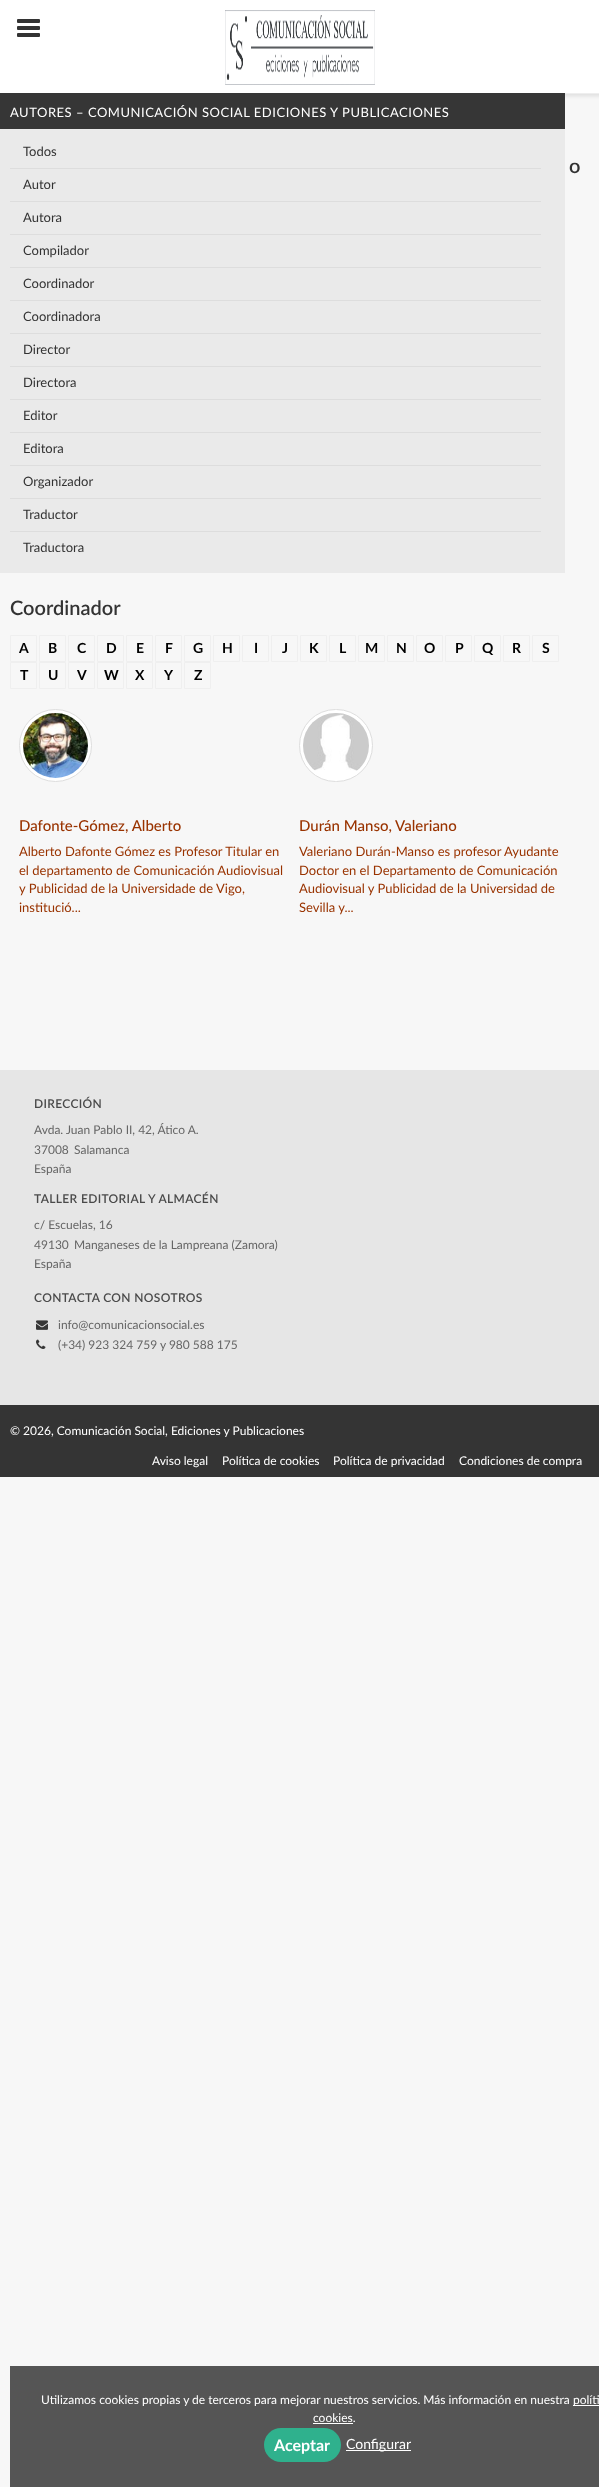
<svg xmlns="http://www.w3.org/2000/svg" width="599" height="2487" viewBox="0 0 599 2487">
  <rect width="100%" height="100%" fill="#f7f7f7"/>
  <path d="M-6 2h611v94H-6z" fill="#0000001a" filter="blur(2px)"/>
  <path d="M0 0h599v93H0z" fill="#fff"/>
  <path d="M565 93h34v1H565z" fill="#eee"/>
  <rect x="17" y="19" width="23" height="4" rx="1" fill="#333"/>
  <rect x="17" y="26" width="23" height="4" rx="1" fill="#333"/>
  <rect x="17" y="33" width="23" height="4" rx="1" fill="#333"/>
  <image x="225" y="10" width="150" height="75" href="img/1.png"/>
  <path d="M0 93h565v36H0z" fill="#363636"/>
  <path d="M0 129h565v444H0z" fill="#eaeaea"/>
  <path d="M10 168h531v1H10z" fill="#ddd"/>
  <path d="M10 201h531v1H10z" fill="#ddd"/>
  <path d="M10 234h531v1H10z" fill="#ddd"/>
  <path d="M10 267h531v1H10z" fill="#ddd"/>
  <path d="M10 300h531v1H10z" fill="#ddd"/>
  <path d="M10 333h531v1H10z" fill="#ddd"/>
  <path d="M10 366h531v1H10z" fill="#ddd"/>
  <path d="M10 399h531v1H10z" fill="#ddd"/>
  <path d="M10 432h531v1H10z" fill="#ddd"/>
  <path d="M10 465h531v1H10z" fill="#ddd"/>
  <path d="M10 498h531v1H10z" fill="#ddd"/>
  <path d="M10 531h531v1H10z" fill="#ddd"/>
  <path d="M10.5 635.5h26v26H10.5z" fill="none" stroke="#efefef"/>
  <path d="M39.5 635.5h26v26H39.5z" fill="none" stroke="#efefef"/>
  <path d="M68.5 635.5h26v26H68.5z" fill="none" stroke="#efefef"/>
  <path d="M97.5 635.5h26v26H97.5z" fill="none" stroke="#efefef"/>
  <path d="M126.5 635.5h26v26H126.5z" fill="none" stroke="#efefef"/>
  <path d="M155.5 635.5h26v26H155.5z" fill="none" stroke="#efefef"/>
  <path d="M184.5 635.5h26v26H184.5z" fill="none" stroke="#efefef"/>
  <path d="M213.5 635.5h26v26H213.5z" fill="none" stroke="#efefef"/>
  <path d="M242.5 635.5h26v26H242.5z" fill="none" stroke="#efefef"/>
  <path d="M271.5 635.5h26v26H271.5z" fill="none" stroke="#efefef"/>
  <path d="M300.5 635.5h26v26H300.5z" fill="none" stroke="#efefef"/>
  <path d="M329.5 635.5h26v26H329.5z" fill="none" stroke="#efefef"/>
  <path d="M358.5 635.5h26v26H358.5z" fill="none" stroke="#efefef"/>
  <path d="M387.5 635.5h26v26H387.5z" fill="none" stroke="#efefef"/>
  <path d="M416.5 635.5h26v26H416.5z" fill="none" stroke="#efefef"/>
  <path d="M445.5 635.5h26v26H445.5z" fill="none" stroke="#efefef"/>
  <path d="M474.5 635.5h26v26H474.5z" fill="none" stroke="#efefef"/>
  <path d="M503.5 635.5h26v26H503.5z" fill="none" stroke="#efefef"/>
  <path d="M532.5 635.5h26v26H532.5z" fill="none" stroke="#efefef"/>
  <path d="M10.5 662.5h26v26H10.5z" fill="none" stroke="#efefef"/>
  <path d="M39.5 662.5h26v26H39.5z" fill="none" stroke="#efefef"/>
  <path d="M68.5 662.5h26v26H68.5z" fill="none" stroke="#efefef"/>
  <path d="M97.5 662.5h26v26H97.5z" fill="none" stroke="#efefef"/>
  <path d="M126.5 662.5h26v26H126.5z" fill="none" stroke="#efefef"/>
  <path d="M155.5 662.5h26v26H155.5z" fill="none" stroke="#efefef"/>
  <path d="M184.5 662.5h26v26H184.5z" fill="none" stroke="#efefef"/>
  <circle cx="55.5" cy="745.5" r="36" fill="#fff" stroke="#dedede"/>
  <image x="23" y="713" width="65" height="65" href="img/2.png"/>
  <rect x="299.5" y="709.5" width="73" height="72" rx="36" fill="#fff" stroke="#dedede"/>
  <image x="303" y="713" width="66" height="58" href="img/3.png"/>
  <path d="M0 1070h599v335H0z" fill="#e6e6e6"/>
  <image x="36" y="1320" width="12" height="10" href="img/4.png"/>
  <image x="36" y="1339" width="10" height="10" href="img/5.png"/>
  <path d="M0 1405h599v72H0z" fill="#343434"/>
  <path d="M10 2366h589v121H10z" fill="#555"/>
  <path d="M573 2405h26v1H573z" fill="#fff"/>
  <path d="M313 2423h40v1H313z" fill="#fff"/>
  <rect x="264" y="2428" width="77" height="34" rx="17" fill="#2fb18d"/>
  <path d="M346 2450h65v1H346z" fill="#fff"/>
  <text x="10" y="117" font-family="Lato" font-size="13" letter-spacing="0.52" fill="#fff">AUTORES – COMUNICACIÓN SOCIAL EDICIONES Y PUBLICACIONES</text>
  <g font-family="Lato" font-size="13" fill="#333">
    <text x="23" y="156">Todos</text>
    <text x="23" y="189">Autor</text>
    <text x="23" y="222">Autora</text>
    <text x="23" y="255">Compilador</text>
    <text x="23" y="288">Coordinador</text>
    <text x="23" y="321">Coordinadora</text>
    <text x="23" y="354">Director</text>
    <text x="23" y="387">Directora</text>
    <text x="23" y="420">Editor</text>
    <text x="23" y="453">Editora</text>
    <text x="23" y="486">Organizador</text>
    <text x="23" y="519">Traductor</text>
    <text x="23" y="552">Traductora</text>
  </g>
  <g font-family="Lato" font-size="20" font-weight="600" fill="#333">
    <text x="569" y="173">o</text>
    <text x="10" y="615">Coordinador</text>
  </g>
  <g font-family="Lato" font-size="14" font-weight="bold" fill="#000">
    <text x="19" y="653">A</text>
    <text x="48" y="653">B</text>
    <text x="77" y="653">C</text>
    <text x="106" y="653">D</text>
    <text x="136" y="653">E</text>
    <text x="165" y="653">F</text>
    <text x="193" y="653">G</text>
    <text x="222" y="653">H</text>
    <text x="254" y="653">I</text>
    <text x="282" y="653">J</text>
    <text x="309" y="653">K</text>
    <text x="339" y="653">L</text>
    <text x="365" y="653">M</text>
    <text x="396" y="653">N</text>
    <text x="424" y="653">O</text>
    <text x="455" y="653">P</text>
    <text x="482" y="653">Q</text>
    <text x="512" y="653">R</text>
    <text x="542" y="653">S</text>
    <text x="20" y="680">T</text>
    <text x="48" y="680">U</text>
    <text x="77" y="680">V</text>
    <text x="104" y="680">W</text>
    <text x="135" y="680">X</text>
    <text x="164" y="680">Y</text>
    <text x="194" y="680">Z</text>
  </g>
  <text x="19" y="831" font-family="Lato" font-size="15" font-weight="500" fill="#930">Dafonte-Gómez, Alberto</text>
  <g font-family="Lato" font-size="13" fill="#930">
    <text x="19" y="856">Alberto Dafonte Gómez es Profesor Titular en</text>
    <text x="19" y="875">el departamento de Comunicación Audiovisual</text>
    <text x="19" y="893">y Publicidad de la Universidade de Vigo,</text>
    <text x="19" y="912">institució...</text>
  </g>
  <text x="299" y="831" font-family="Lato" font-size="15" font-weight="500" fill="#930">Durán Manso, Valeriano</text>
  <g font-family="Lato" font-size="13" fill="#930">
    <text x="299" y="856">Valeriano Durán-Manso es profesor Ayudante</text>
    <text x="299" y="875">Doctor en el Departamento de Comunicación</text>
    <text x="299" y="893">Audiovisual y Publicidad de la Universidad de</text>
    <text x="299" y="912">Sevilla y...</text>
  </g>
  <text x="34" y="1108" font-family="Lato" font-size="12" font-weight="600" letter-spacing="0.35" fill="#4a4a4a">DIRECCIÓN</text>
  <g font-family="Lato" font-size="12" fill="#666">
    <text x="34" y="1134">Avda. Juan Pablo II, 42, Ático A.</text>
    <text x="34" y="1154">37008</text>
    <text x="74" y="1154">Salamanca</text>
    <text x="34" y="1173">España</text>
  </g>
  <text x="34" y="1203" font-family="Lato" font-size="12" font-weight="600" letter-spacing="0.35" fill="#4a4a4a">TALLER EDITORIAL Y ALMACÉN</text>
  <g font-family="Lato" font-size="12" fill="#666">
    <text x="34" y="1229">c/ Escuelas, 16</text>
    <text x="34" y="1249">49130</text>
    <text x="74" y="1249">Manganeses de la Lampreana (Zamora)</text>
    <text x="34" y="1268">España</text>
  </g>
  <text x="34" y="1302" font-family="Lato" font-size="12" font-weight="600" letter-spacing="0.35" fill="#4a4a4a">CONTACTA CON NOSOTROS</text>
  <g font-family="Lato" font-size="12" fill="#666">
    <text x="58" y="1329">info@comunicacionsocial.es</text>
    <text x="58" y="1349">(+34) 923 324 759 y 980 588 175</text>
  </g>
  <g font-family="Lato" font-size="12" fill="#fff">
    <text x="10" y="1435">© 2026, Comunicación Social, Ediciones y Publicaciones</text>
    <text x="152" y="1465">Aviso legal</text>
    <text x="222" y="1465">Política de cookies</text>
    <text x="333" y="1465">Política de privacidad</text>
    <text x="459" y="1465">Condiciones de compra</text>
    <text x="41" y="2404">Utilizamos cookies propias y de terceros para mejorar nuestros servicios. Más información en nuestra</text>
    <text x="573" y="2404">políti</text>
    <text x="313" y="2422">cookies.</text>
  </g>
  <text x="274" y="2451" font-family="Lato" font-size="16" font-weight="bold" fill="#fff">Aceptar</text>
  <text x="346" y="2449" font-family="Lato" font-size="14" fill="#fff">Configurar</text>
</svg>
